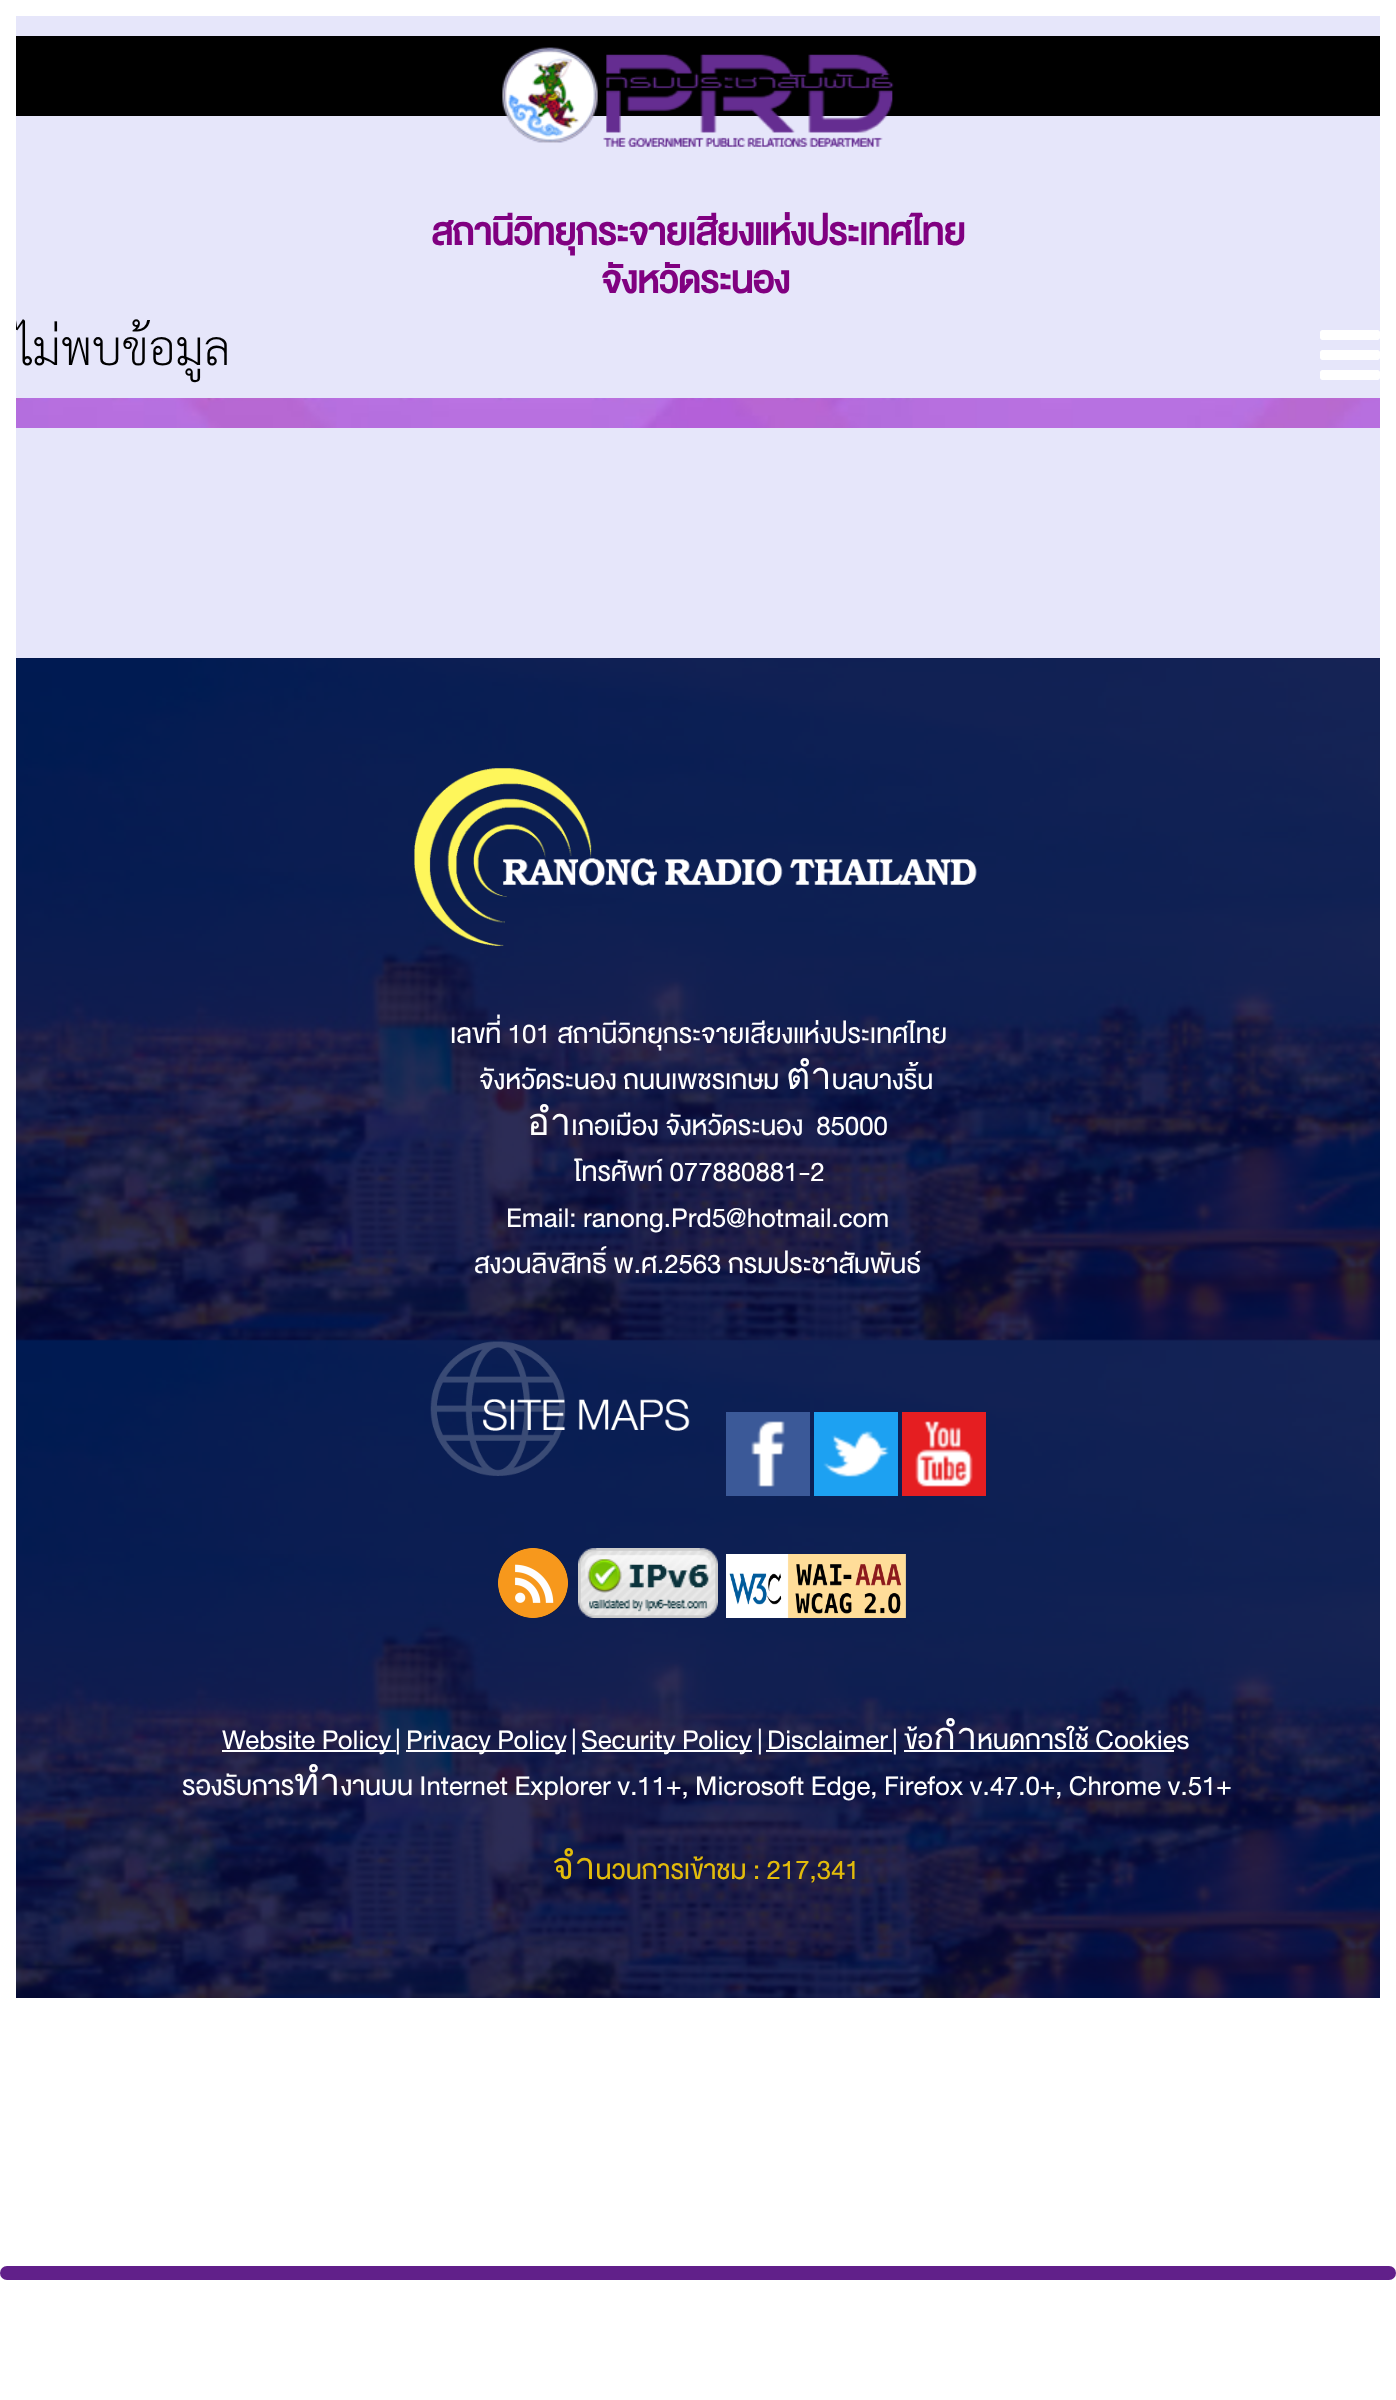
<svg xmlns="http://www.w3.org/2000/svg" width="1396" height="2400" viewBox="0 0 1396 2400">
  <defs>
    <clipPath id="clip1"><path d="M16 16h1364v1982H16z"/></clipPath>
  </defs>
  <rect width="100%" height="100%" fill="#fff"/>
  <image x="16" y="398" width="1364" height="30" href="img/1.png"/>
  <path d="M16 36h1364v80H16z" fill="#000"/>
  <path d="M16 116h1364v282H16z" fill="#e6e6fa"/>
  <image x="1320" y="330" width="60" height="50" href="img/2.png"/>
  <path d="M16 16h1364v20H16z" fill="#e6e6fa"/>
  <image x="502" y="47" width="392" height="100" href="img/3.png"/>
  <path d="M16 428h1364v230H16z" fill="#e6e6fa"/>
  <image x="16" y="658" width="1364" height="1340" href="img/4.png"/>
  <image x="414" y="768" width="563" height="178" href="img/5.png"/>
  <image x="430" y="1341" width="260" height="135" href="img/6.png"/>
  <image x="726" y="1412" width="84" height="84" href="img/7.png"/>
  <image x="814" y="1412" width="84" height="84" href="img/8.png"/>
  <image x="902" y="1412" width="84" height="84" href="img/9.png"/>
  <image x="498" y="1548" width="70" height="70" href="img/10.png"/>
  <image x="578" y="1548" width="140" height="70" href="img/11.png"/>
  <image x="726" y="1554" width="180" height="64" href="img/12.png"/>
  <path d="M222 1750h174v2H222z" fill="#fff"/>
  <path d="M406 1750h160v2H406z" fill="#fff"/>
  <path d="M582 1750h170v2H582z" fill="#fff"/>
  <path d="M766 1750h126v2H766z" fill="#fff"/>
  <path d="M904 1750h270v2H904z" fill="#fff"/>
  <rect y="2266" width="1396" height="14" rx="7" fill="#61208a"/>
  <g font-family="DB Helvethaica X" font-size="52" font-weight="bold" fill="#800080">
    <text x="431" y="245">สถานีวิทยุกระจายเสียงแห่งประเทศไทย</text>
    <text x="601" y="293">จังหวัดระนอง</text>
  </g>
  <g clip-path="url(#clip1)">
    <text x="16" y="365" font-family="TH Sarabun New" font-size="70" fill="#000">ไม่พบข้อมูล</text>
  </g>
  <g font-family="DB Helvethaica X" font-size="38" fill="#fff">
    <text x="450" y="1043">เลขที่ 101 สถานีวิทยุกระจายเสียงแห่งประเทศไทย</text>
    <text x="479" y="1089">จังหวัดระนอง ถนนเพชรเกษม ตำบลบางริ้น</text>
    <text x="527" y="1135" xml:space="preserve">อำเภอเมือง จังหวัดระนอง  85000</text>
    <text x="574" y="1181">โทรศัพท์ 077880881-2</text>
    <text x="506" y="1227">Email: ranong.Prd5@hotmail.com</text>
    <text x="474" y="1273">สงวนลิขสิทธิ์ พ.ศ.2563 กรมประชาสัมพันธ์</text>
    <text x="222" y="1749">Website Policy</text>
    <text x="395" y="1749">|</text>
    <text x="406" y="1749">Privacy Policy</text>
    <text x="571" y="1749">|</text>
    <text x="581" y="1749">Security Policy</text>
    <text x="757" y="1749">|</text>
    <text x="767" y="1749">Disclaimer</text>
    <text x="892" y="1749">| ข้อกำหนดการใช้ Cookies</text>
    <text x="182" y="1795">รองรับการทำงานบน Internet Explorer v.11+, Microsoft Edge, Firefox v.47.0+, Chrome v.51+</text>
  </g>
  <text x="552" y="1879" font-family="DB Helvethaica X" font-size="38" fill="#e2bb0b">จำนวนการเข้าชม : 217,341</text>
</svg>
